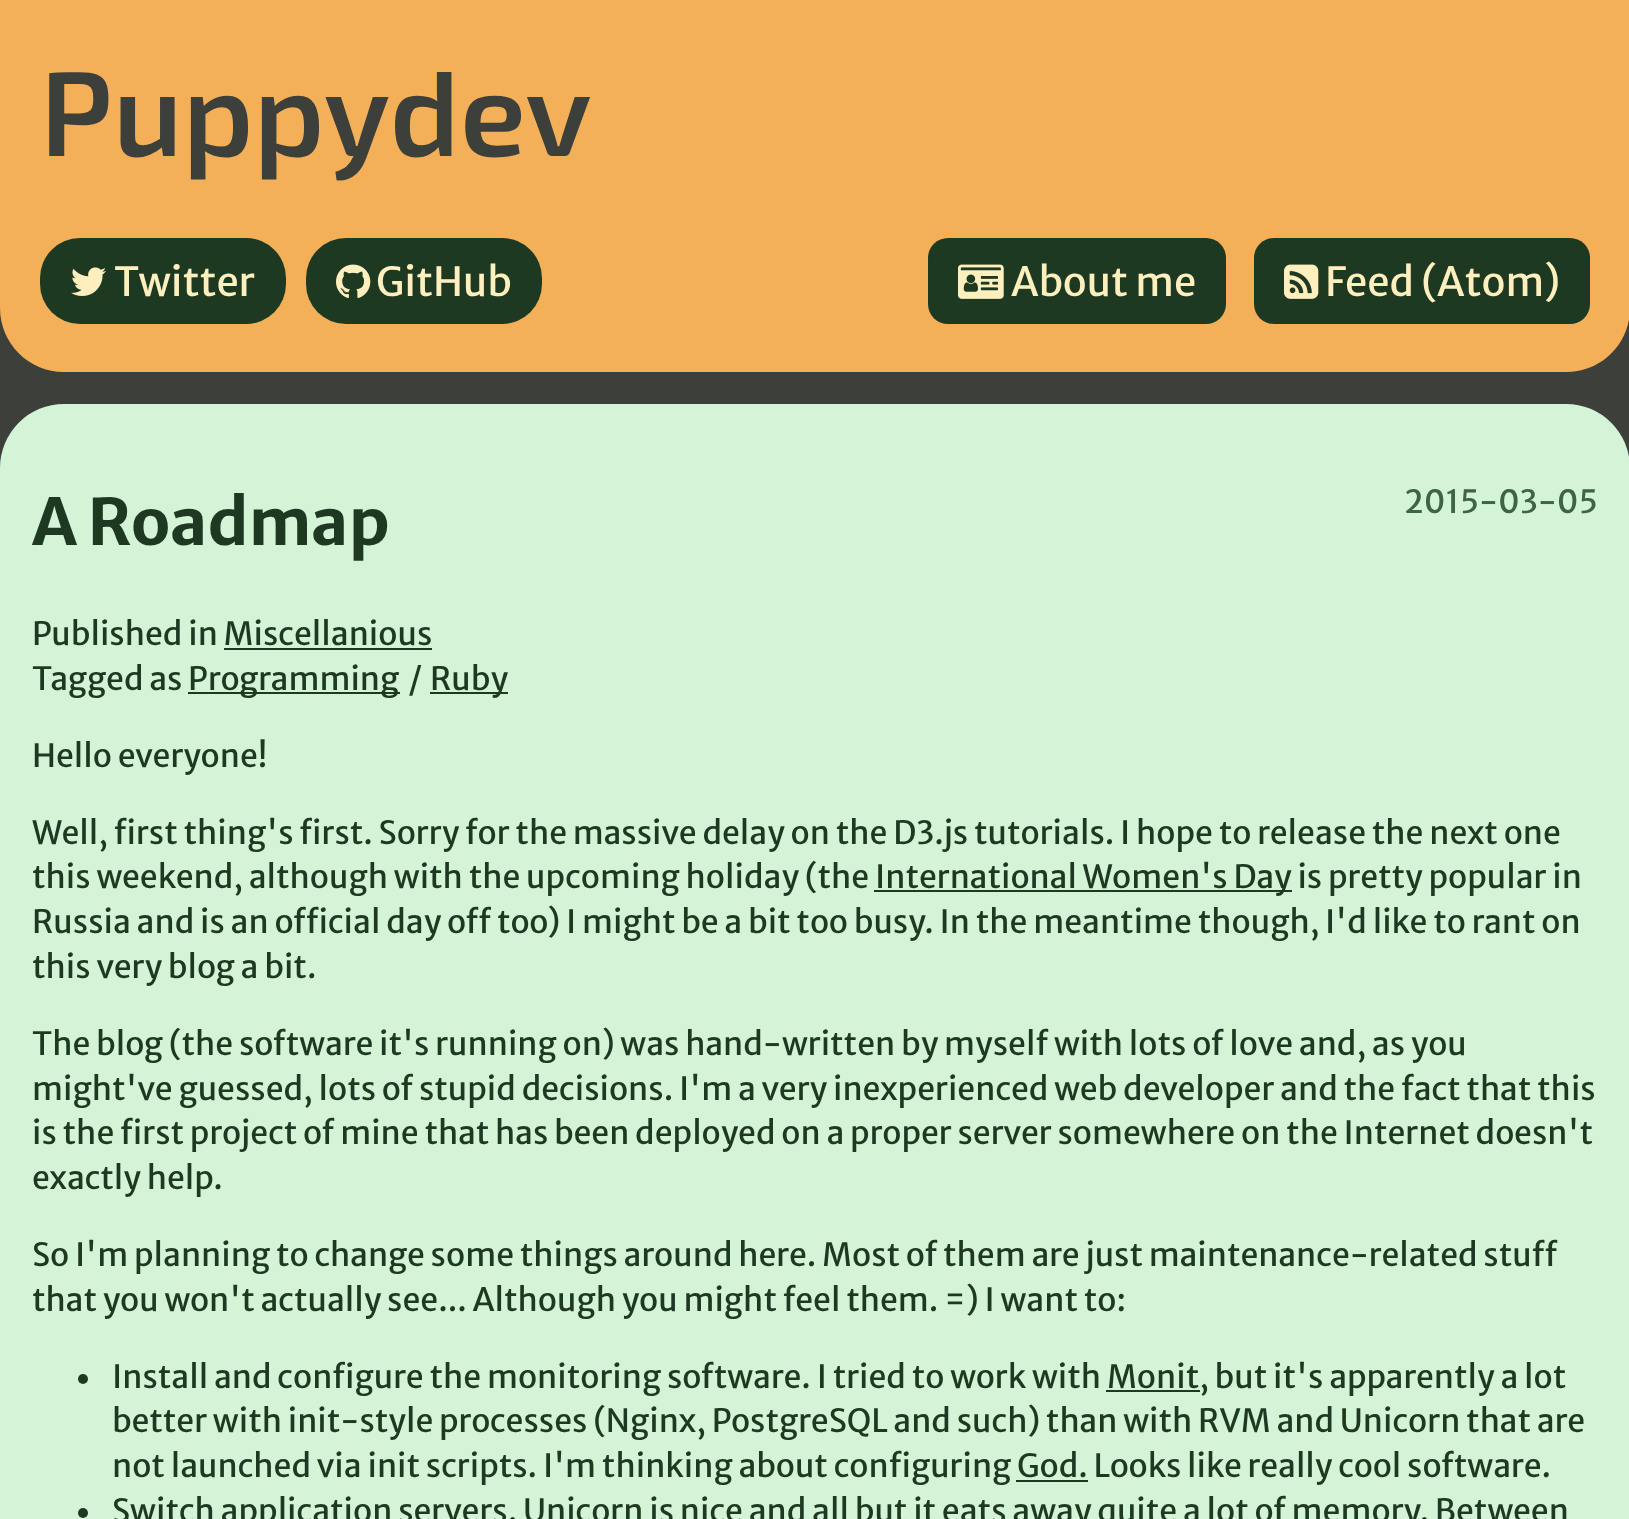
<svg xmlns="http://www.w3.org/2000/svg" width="1629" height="1519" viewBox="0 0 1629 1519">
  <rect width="100%" height="100%" fill="#3c3f3a"/>
  <path d="M0 0H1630V308C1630 343.5 1601.5 372 1566 372H64C28.5 372 0 343.5 0 308Z" fill="#f4b058"/>
  <rect x="40" y="238" width="246" height="86" rx="40" fill="#1e3921"/>
  <image x="71" y="267" width="35" height="29" href="img/1.png"/>
  <rect x="306" y="238" width="236" height="86" rx="40" fill="#1e3921"/>
  <image x="336" y="264" width="35" height="34" href="img/2.png"/>
  <rect x="928" y="238" width="298" height="86" rx="20" fill="#1e3921"/>
  <image x="958" y="264" width="46" height="35" href="img/3.png"/>
  <rect x="1254" y="238" width="336" height="86" rx="20" fill="#1e3921"/>
  <image x="1284" y="264" width="35" height="35" href="img/4.png"/>
  <rect y="404" width="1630" height="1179" rx="64" fill="#d4f4d8"/>
  <path d="M224 648h208v2H224z" fill="#1e3921"/>
  <path d="M188 692h212v2H188z" fill="#1e3921"/>
  <path d="M430 692h78v2H430z" fill="#1e3921"/>
  <path d="M874 890h418v2H874z" fill="#1e3921"/>
  <circle cx="83" cy="1379" r="5" fill="#1e3921"/>
  <path d="M1106 1390h94v2H1106z" fill="#1e3921"/>
  <path d="M1016 1480h72v2H1016z" fill="#1e3921"/>
  <circle cx="83" cy="1513" r="5" fill="#1e3921"/>
  <text x="40" y="156" font-family="'Exo 2'" font-size="120" font-weight="600" fill="#3c3f3a">Puppydev</text>
  <g font-family="Merriweather Sans" font-size="40" fill="#ffefbf">
    <text x="114" y="296">Twitter</text>
    <text x="376" y="296">GitHub</text>
    <text x="1011" y="296">About me</text>
    <text x="1325" y="296">Feed (Atom)</text>
  </g>
  <text x="32" y="545" font-family="Merriweather Sans" font-size="64" font-weight="bold" fill="#1e3921">A Roadmap</text>
  <text x="1404" y="513" font-family="Merriweather Sans" font-size="32" fill="#406344">2015-03-05</text>
  <g font-family="Merriweather Sans" font-size="32" fill="#1e3921">
    <text x="32" y="645">Published in Miscellanious</text>
    <text x="32" y="690">Tagged as</text>
    <text x="188" y="690">Programming</text>
    <text x="408" y="690">/</text>
    <text x="430" y="690">Ruby</text>
    <text x="32" y="767">Hello everyone!</text>
    <text x="32" y="844">Well, first thing's first. Sorry for the massive delay on the D3.js tutorials. I hope to release the next one</text>
    <text x="32" y="888">this weekend, although with the upcoming holiday (the</text>
    <text x="875" y="888">International Women's Day is pretty popular in</text>
    <text x="32" y="933">Russia and is an official day off too) I might be a bit too busy. In the meantime though, I'd like to rant on</text>
    <text x="32" y="978">this very blog a bit.</text>
    <text x="32" y="1055">The blog (the software it's running on) was hand-written by myself with lots of love and, as you</text>
    <text x="32" y="1100">might've guessed, lots of stupid decisions. I'm a very inexperienced web developer and the fact that this</text>
    <text x="32" y="1144">is the first project of mine that has been deployed on a proper server somewhere on the Internet doesn't</text>
    <text x="32" y="1189">exactly help.</text>
    <text x="32" y="1266">So I'm planning to change some things around here. Most of them are just maintenance-related stuff</text>
    <text x="32" y="1311">that you won't actually see... Although you might feel them. =) I want to:</text>
    <text x="112" y="1388">Install and configure the monitoring software. I tried to work with Monit, but it's apparently a lot</text>
    <text x="112" y="1432">better with init-style processes (Nginx, PostgreSQL and such) than with RVM and Unicorn that are</text>
    <text x="112" y="1477">not launched via init scripts. I'm thinking about configuring</text>
    <text x="1017" y="1477">God. Looks like really cool software.</text>
    <text x="112" y="1522">Switch application servers. Unicorn is nice and all but it eats away quite a lot of memory. Between</text>
  </g>
</svg>
